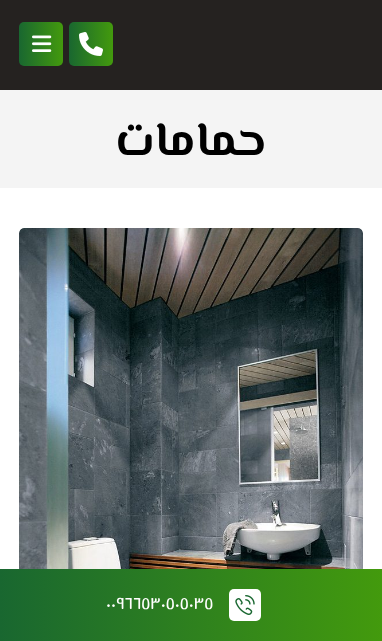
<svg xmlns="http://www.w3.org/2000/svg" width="382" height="641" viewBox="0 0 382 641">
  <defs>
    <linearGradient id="g1" gradientUnits="userSpaceOnUse" x1="19" y1="44" x2="63" y2="44"><stop offset="0" stop-color="#196730"/><stop offset="1" stop-color="#439a0d"/></linearGradient>
    <linearGradient id="g2" gradientUnits="userSpaceOnUse" x1="69" y1="44" x2="113" y2="44"><stop offset="0" stop-color="#196730"/><stop offset="1" stop-color="#439a0d"/></linearGradient>
    <linearGradient id="g3" gradientUnits="userSpaceOnUse" x1="0" y1="605" x2="382" y2="605"><stop offset="0" stop-color="#196730"/><stop offset="1" stop-color="#439a0d"/></linearGradient>
  </defs>
  <rect width="100%" height="100%" fill="#fff"/>
  <path d="M0 0h382v90H0z" fill="#252220"/>
  <rect x="19" y="22" width="44" height="44" rx="5" fill="url(#g1)"/>
  <image x="32" y="35" width="20" height="17" href="img/1.png"/>
  <rect x="69" y="22" width="44" height="44" rx="5" fill="url(#g2)"/>
  <image x="79" y="32" width="24" height="24" href="img/2.png"/>
  <path d="M0 90h382v98H0z" fill="#f4f4f4"/>
  <image x="19" y="228" width="344" height="341" href="img/3.png"/>
  <path d="M0 569h382v72H0z" fill="url(#g3)"/>
  <rect x="229" y="589" width="32" height="32" rx="5" fill="#fff"/>
  <image x="235" y="595" width="20" height="20" href="img/4.png"/>
  <text x="267" y="155" font-family="El Messiri" font-size="48" font-weight="bold" direction="rtl" fill="#000">حمامات</text>
  <text x="106" y="609" font-family="El Messiri" font-size="18" fill="#fff">٠٠٩٦٦٥٣٠٥٠٥٠٣٥</text>
</svg>
